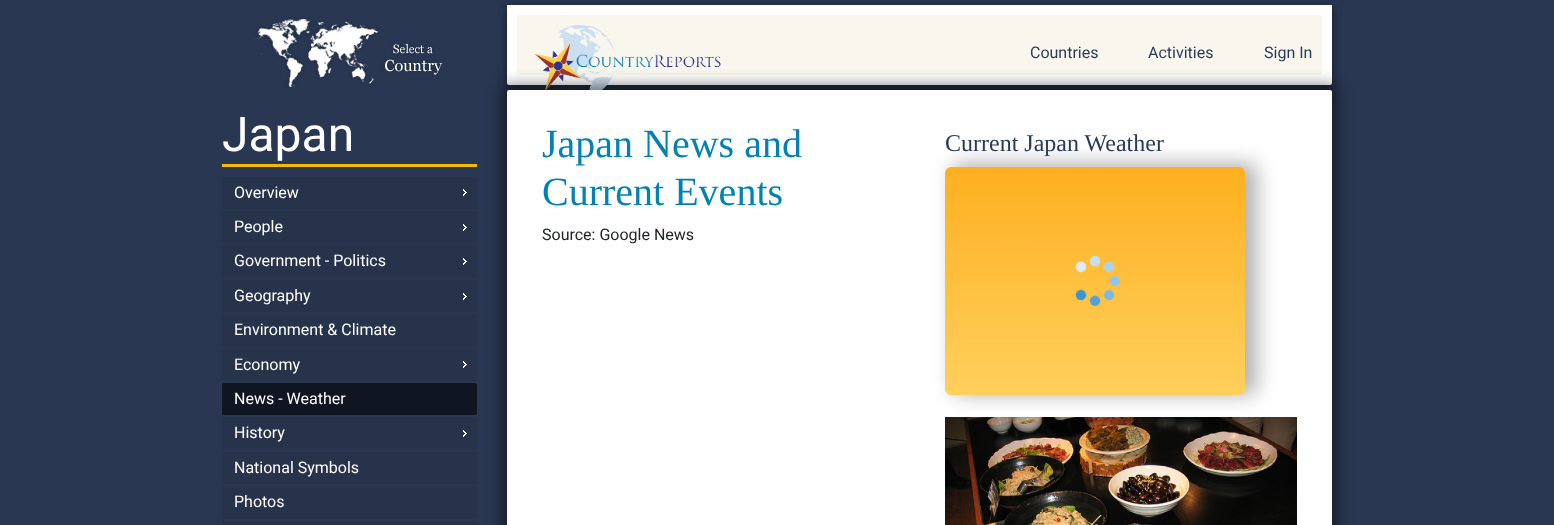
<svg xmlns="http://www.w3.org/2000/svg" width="1554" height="525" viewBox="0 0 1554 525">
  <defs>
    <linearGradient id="g1" gradientUnits="userSpaceOnUse" x1="1095" y1="167" x2="1095" y2="395"><stop offset="0" stop-color="#feb020"/><stop offset="1" stop-color="#ffd05c"/></linearGradient>
  </defs>
  <rect width="100%" height="100%" fill="#293752"/>
  <image x="254" y="17" width="189" height="70" href="img/1.png"/>
  <path d="M222 164h255v3H222z" fill="#f8b900"/>
  <rect x="222" y="177" width="255" height="32" rx="2" fill="#26334b"/>
  <image x="463" y="189" width="4" height="7" href="img/2.png"/>
  <rect x="222" y="211" width="255" height="32" rx="2" fill="#26334b"/>
  <image x="463" y="224" width="4" height="7" href="img/2.png"/>
  <rect x="222" y="245" width="255" height="33" rx="2" fill="#26334b"/>
  <image x="463" y="258" width="4" height="7" href="img/2.png"/>
  <rect x="222" y="280" width="255" height="32" rx="2" fill="#26334b"/>
  <image x="463" y="293" width="4" height="7" href="img/2.png"/>
  <rect x="222" y="314" width="255" height="33" rx="2" fill="#26334b"/>
  <rect x="222" y="349" width="255" height="32" rx="2" fill="#26334b"/>
  <image x="463" y="361" width="4" height="7" href="img/2.png"/>
  <rect x="222" y="383" width="255" height="32" rx="2" fill="#101621"/>
  <rect x="222" y="417" width="255" height="33" rx="2" fill="#26334b"/>
  <image x="463" y="430" width="4" height="7" href="img/2.png"/>
  <rect x="222" y="452" width="255" height="32" rx="2" fill="#26334b"/>
  <rect x="222" y="486" width="255" height="33" rx="2" fill="#26334b"/>
  <rect x="222" y="521" width="255" height="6" rx="2" fill="#26334b"/>
  <rect x="507" y="10" width="825" height="80" rx="2" fill="#00000040" filter="blur(5px)"/>
  <rect x="507" y="5" width="825" height="80" rx="2" fill="#00000040" filter="blur(5px)"/>
  <path d="M507 5H1332V83C1332 84 1331 85 1330 85H509C508 85 507 84 507 83Z" fill="#fff"/>
  <rect x="517" y="15" width="805" height="60" rx="2" fill="#f9f6ed"/>
  <image x="534" y="25" width="187" height="65" href="img/3.png"/>
  <rect x="502" y="85" width="835" height="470" rx="7" fill="#00000080" filter="blur(7.5px)"/>
  <rect x="507" y="90" width="825" height="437" rx="2" fill="#fff"/>
  <image x="945" y="417" width="352" height="108" href="img/5.png"/>
  <rect x="953" y="163" width="304" height="232" rx="8" fill="#0000004d" filter="blur(10px)"/>
  <rect x="945" y="167" width="300" height="228" rx="6" fill="url(#g1)"/>
  <image x="1075" y="256" width="45" height="50" href="img/4.png"/>
  <text x="222" y="151" font-family="Roboto" font-size="48" fill="#fff">Japan</text>
  <g font-family="Roboto" font-size="16" fill="#fff">
    <text x="234" y="198">Overview</text>
    <text x="234" y="232">People</text>
    <text x="234" y="266">Government - Politics</text>
    <text x="234" y="301">Geography</text>
    <text x="234" y="335">Environment &amp; Climate</text>
    <text x="234" y="370">Economy</text>
    <text x="234" y="404">News - Weather</text>
    <text x="234" y="438">History</text>
    <text x="234" y="473">National Symbols</text>
    <text x="234" y="507">Photos</text>
  </g>
  <g font-family="Roboto" font-size="16" fill="#2b3a5b">
    <text x="1030" y="58">Countries</text>
    <text x="1148" y="58">Activities</text>
    <text x="1264" y="58">Sign In</text>
  </g>
  <g font-family="Liberation Serif" font-size="40" fill="#0082b4">
    <text x="542" y="157">Japan News and</text>
    <text x="542" y="205">Current Events</text>
  </g>
  <text x="542" y="240" font-family="Roboto" font-size="16" fill="#212529">Source: Google News</text>
  <text x="945" y="151" font-family="Liberation Serif" font-size="24" fill="#2b3a5b">Current Japan Weather</text>
</svg>
